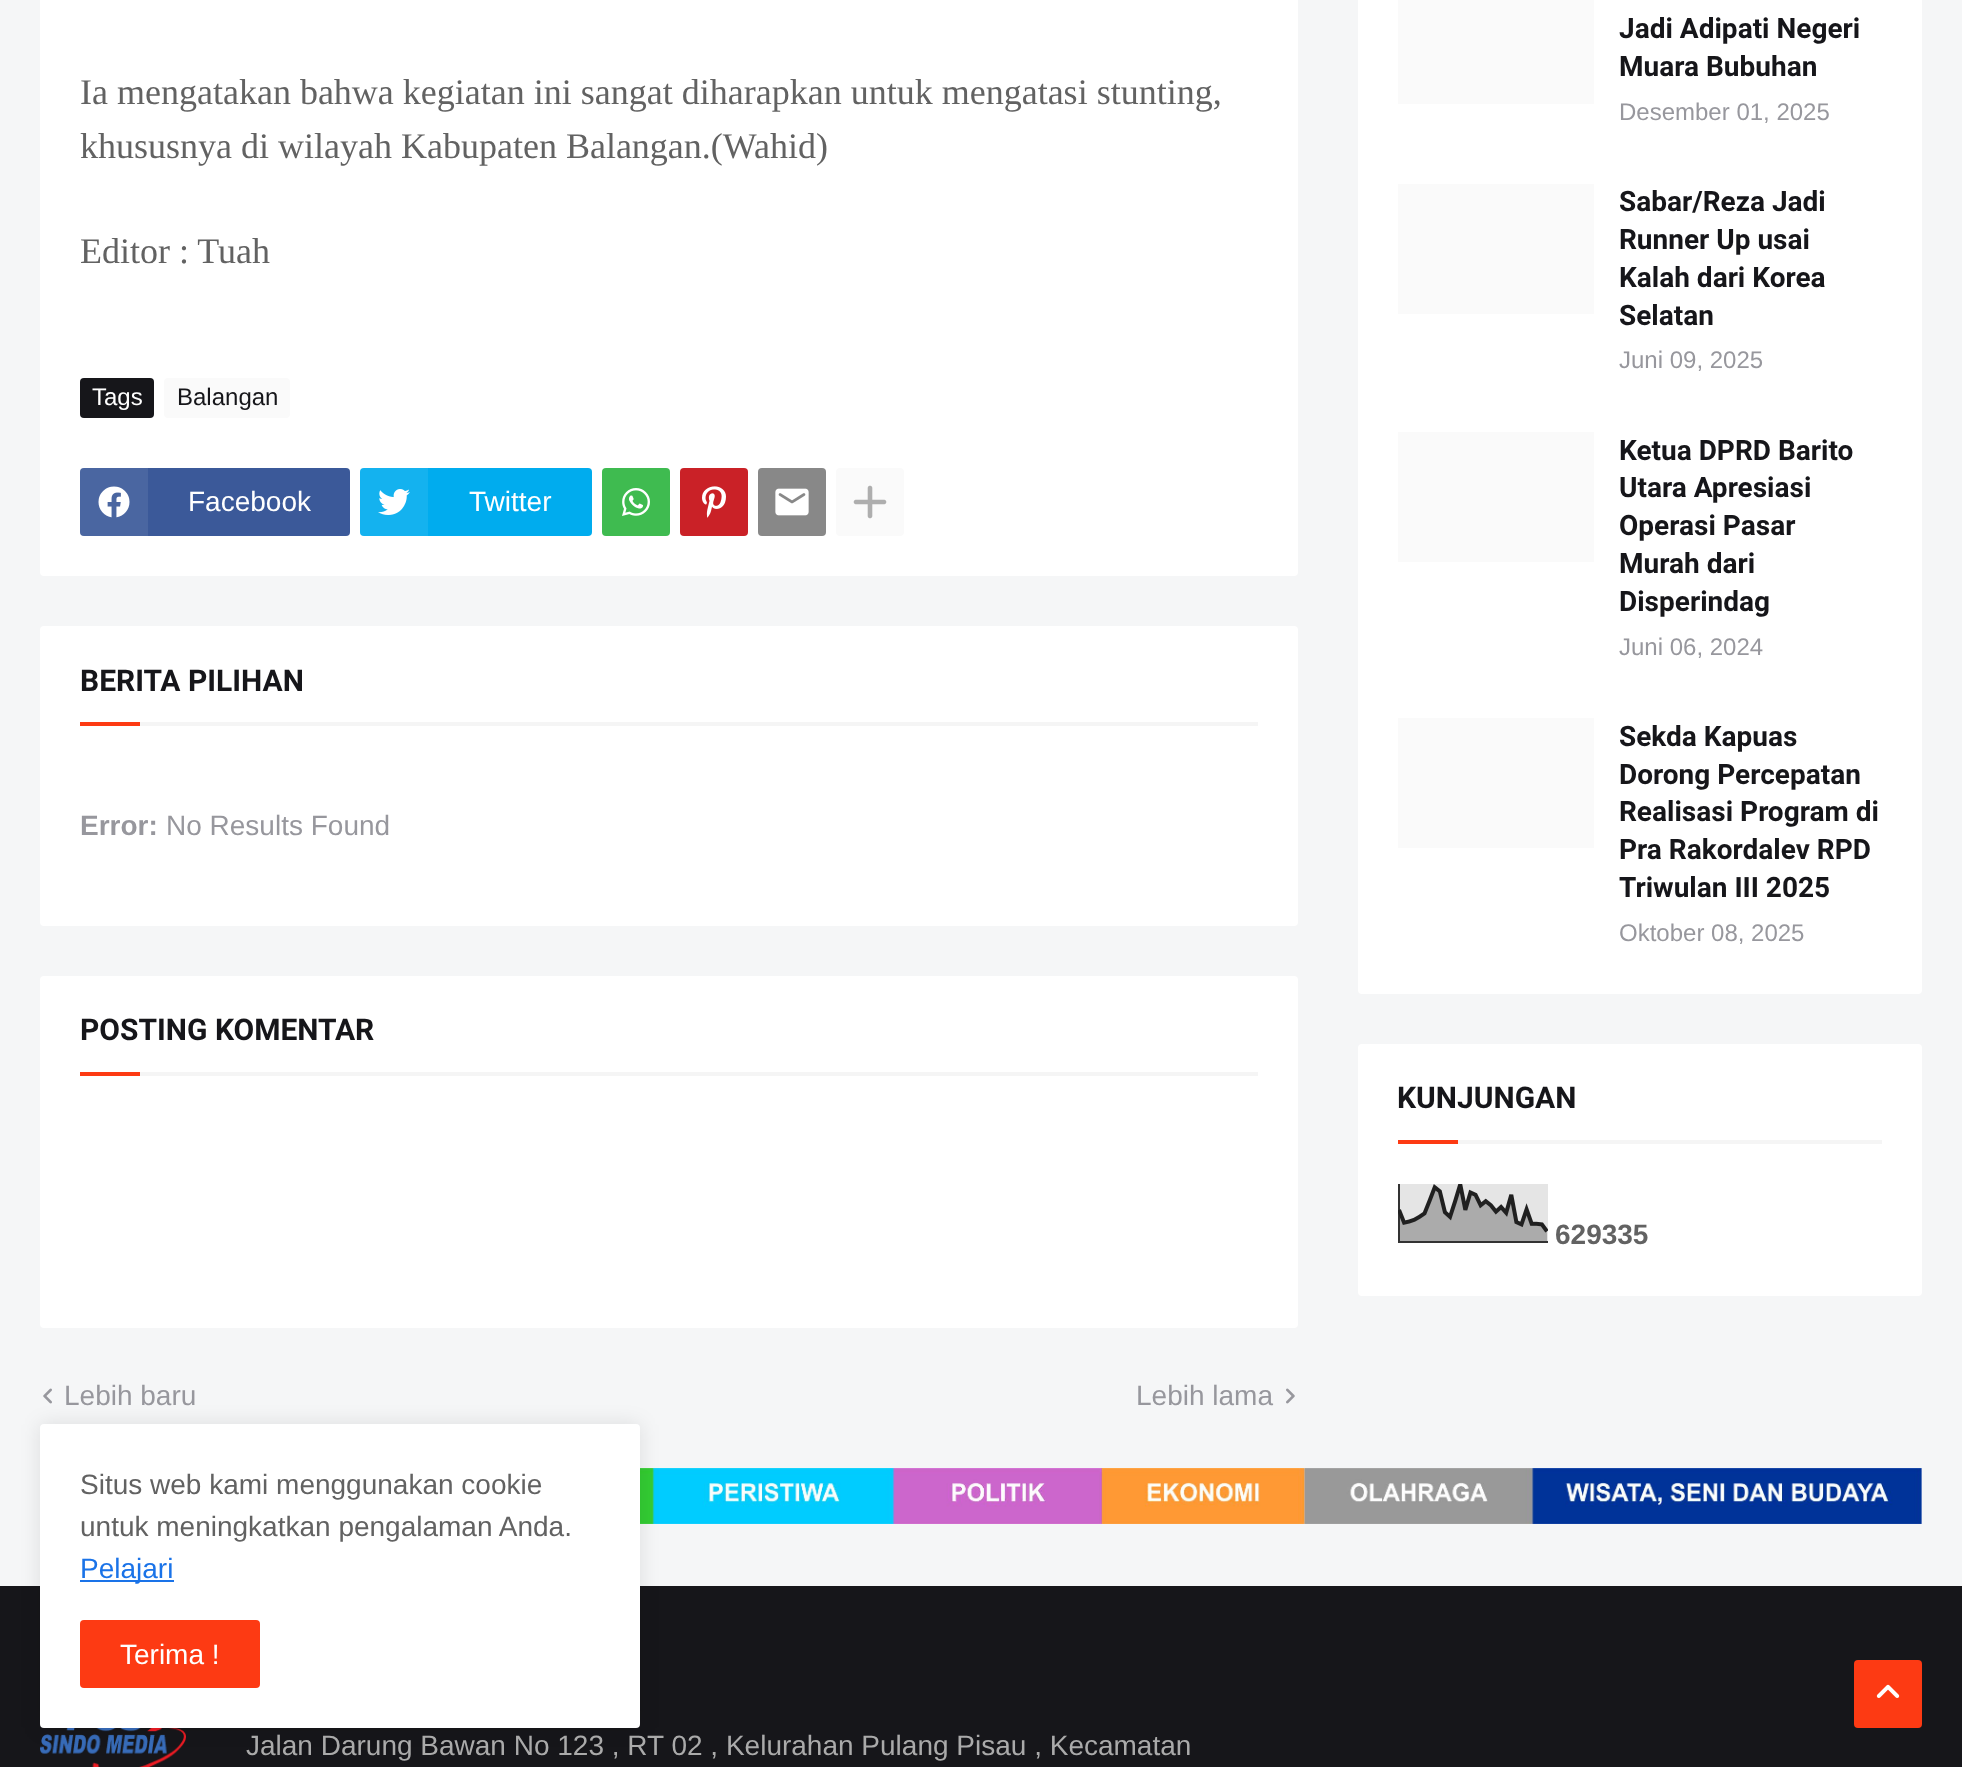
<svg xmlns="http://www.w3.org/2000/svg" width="1962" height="1767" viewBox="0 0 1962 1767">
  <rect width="100%" height="100%" fill="#f5f6f7"/>
  <rect x="40" y="-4" width="1258" height="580" rx="4" fill="#fff"/>
  <rect x="80" y="378" width="74" height="40" rx="4" fill="#16161a"/>
  <rect x="164" y="378" width="126" height="40" rx="4" fill="#fafafa"/>
  <rect x="80" y="468" width="270" height="68" rx="4" fill="#3b5999"/>
  <path d="M84 468H148V536H84C82 536 80 534 80 532V472C80 470 82 468 84 468Z" fill="#ffffff14"/>
  <image x="98" y="486" width="32" height="32" href="img/1.png"/>
  <rect x="360" y="468" width="232" height="68" rx="4" fill="#00acee"/>
  <path d="M364 468H428V536H364C362 536 360 534 360 532V472C360 470 362 468 364 468Z" fill="#ffffff14"/>
  <image x="378" y="489" width="32" height="26" href="img/2.png"/>
  <rect x="602" y="468" width="68" height="68" rx="4" fill="#3fbb50"/>
  <image x="622" y="488" width="28" height="28" href="img/3.png"/>
  <rect x="680" y="468" width="68" height="68" rx="4" fill="#ca2127"/>
  <image x="702" y="486" width="24" height="32" href="img/4.png"/>
  <rect x="758" y="468" width="68" height="68" rx="4" fill="#888"/>
  <image x="775" y="488" width="34" height="28" href="img/5.png"/>
  <rect x="836" y="468" width="68" height="68" rx="4" fill="#fafafa"/>
  <image x="853" y="485" width="34" height="34" href="img/6.png"/>
  <rect x="40" y="626" width="1258" height="300" rx="4" fill="#fff"/>
  <path d="M140 722h1118v4H140z" fill="#f5f5f5"/>
  <path d="M80 722h60v4H80z" fill="#fd3a13"/>
  <rect x="40" y="976" width="1258" height="352" rx="4" fill="#fff"/>
  <path d="M140 1072h1118v4H140z" fill="#f5f5f5"/>
  <path d="M80 1072h60v4H80z" fill="#fd3a13"/>
  <image x="43" y="1388" width="9" height="16" href="img/7.png"/>
  <image x="1286" y="1388" width="9" height="16" href="img/8.png"/>
  <rect x="1358" y="-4" width="564" height="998" rx="4" fill="#fff"/>
  <path d="M1398 0h196v104H1398z" fill="#fafafa"/>
  <path d="M1398 184h196v130H1398z" fill="#fafafa"/>
  <path d="M1398 432h196v130H1398z" fill="#fafafa"/>
  <path d="M1398 718h196v130H1398z" fill="#fafafa"/>
  <rect x="1358" y="1044" width="564" height="252" rx="4" fill="#fff"/>
  <path d="M1458 1140h424v4H1458z" fill="#f5f5f5"/>
  <path d="M1398 1140h60v4H1398z" fill="#fd3a13"/>
  <image x="1398" y="1184" width="150" height="59" href="img/9.png"/>
  <image x="640" y="1468" width="1282" height="56" href="img/10.png"/>
  <path d="M0 1586h1962v181H0z" fill="#16161a"/>
  <image x="40" y="1728" width="146" height="39" href="img/11.png"/>
  <rect x="40" y="1424" width="600" height="304" rx="4" fill="#0000001a" filter="blur(10px)"/>
  <rect x="40" y="1424" width="600" height="304" rx="4" fill="#fff"/>
  <path d="M80 1580h94v2H80z" fill="#1a73e8"/>
  <rect x="80" y="1620" width="180" height="68" rx="4" fill="#fd3a13"/>
  <rect x="1854" y="1660" width="68" height="68" rx="4" fill="#fd3a13"/>
  <image x="1876" y="1684" width="24" height="14" href="img/12.png"/>
  <g font-family="Liberation Serif" font-size="36" fill="#626262">
    <text x="80" y="104">Ia mengatakan bahwa kegiatan ini sangat diharapkan untuk mengatasi stunting,</text>
    <text x="80" y="158">khususnya di wilayah Kabupaten Balangan.(Wahid)</text>
    <text x="80" y="263">Editor : Tuah</text>
  </g>
  <text x="92" y="405" font-family="Liberation Sans" font-size="24" fill="#fff">Tags</text>
  <text x="177" y="405" font-family="Liberation Sans" font-size="24" fill="#16161a">Balangan</text>
  <g font-family="Liberation Sans" font-size="28" fill="#fff">
    <text x="188" y="511">Facebook</text>
    <text x="469" y="511">Twitter</text>
  </g>
  <text x="80" y="691" font-family="Roboto" font-size="30" font-weight="bold" fill="#16161a">BERITA PILIHAN</text>
  <text x="80" y="835" font-family="Liberation Sans" font-size="28" font-weight="bold" fill="#97979d">Error:</text>
  <text x="166" y="835" font-family="Liberation Sans" font-size="28" fill="#97979d">No Results Found</text>
  <text x="80" y="1040" font-family="Roboto" font-size="30" font-weight="bold" fill="#16161a">POSTING KOMENTAR</text>
  <g font-family="Liberation Sans" font-size="28" fill="#97979d">
    <text x="64" y="1405">Lebih baru</text>
    <text x="1136" y="1405">Lebih lama</text>
  </g>
  <g font-family="Roboto" font-size="28" font-weight="bold" fill="#16161a">
    <text x="1619" y="38">Jadi Adipati Negeri</text>
    <text x="1619" y="76">Muara Bubuhan</text>
  </g>
  <text x="1619" y="120" font-family="Liberation Sans" font-size="24" fill="#97979d">Desember 01, 2025</text>
  <g font-family="Roboto" font-size="28" font-weight="bold" fill="#16161a">
    <text x="1619" y="211">Sabar/Reza Jadi</text>
    <text x="1619" y="249">Runner Up usai</text>
    <text x="1619" y="287">Kalah dari Korea</text>
    <text x="1619" y="325">Selatan</text>
  </g>
  <text x="1619" y="368" font-family="Liberation Sans" font-size="24" fill="#97979d">Juni 09, 2025</text>
  <g font-family="Roboto" font-size="28" font-weight="bold" fill="#16161a">
    <text x="1619" y="460">Ketua DPRD Barito</text>
    <text x="1619" y="497">Utara Apresiasi</text>
    <text x="1619" y="535">Operasi Pasar</text>
    <text x="1619" y="573">Murah dari</text>
    <text x="1619" y="611">Disperindag</text>
  </g>
  <text x="1619" y="655" font-family="Liberation Sans" font-size="24" fill="#97979d">Juni 06, 2024</text>
  <g font-family="Roboto" font-size="28" font-weight="bold" fill="#16161a">
    <text x="1619" y="746">Sekda Kapuas</text>
    <text x="1619" y="784">Dorong Percepatan</text>
    <text x="1619" y="821">Realisasi Program di</text>
    <text x="1619" y="859">Pra Rakordalev RPD</text>
    <text x="1619" y="897">Triwulan III 2025</text>
  </g>
  <text x="1619" y="941" font-family="Liberation Sans" font-size="24" fill="#97979d">Oktober 08, 2025</text>
  <text x="1397" y="1108" font-family="Roboto" font-size="30" font-weight="bold" fill="#16161a">KUNJUNGAN</text>
  <text x="1555" y="1244" font-family="Liberation Sans" font-size="28" font-weight="bold" fill="#626262">629335</text>
  <g font-family="Liberation Sans" font-size="28" fill="#626262">
    <text x="80" y="1494">Situs web kami menggunakan cookie</text>
    <text x="80" y="1536">untuk meningkatkan pengalaman Anda.</text>
  </g>
  <text x="80" y="1578" font-family="Liberation Sans" font-size="28" fill="#1a73e8">Pelajari</text>
  <text x="120" y="1664" font-family="Liberation Sans" font-size="28" fill="#fff">Terima !</text>
  <text x="246" y="1755" font-family="Liberation Sans" font-size="28" fill="#aaa">Jalan Darung Bawan No 123 , RT 02 , Kelurahan Pulang Pisau , Kecamatan</text>
</svg>
